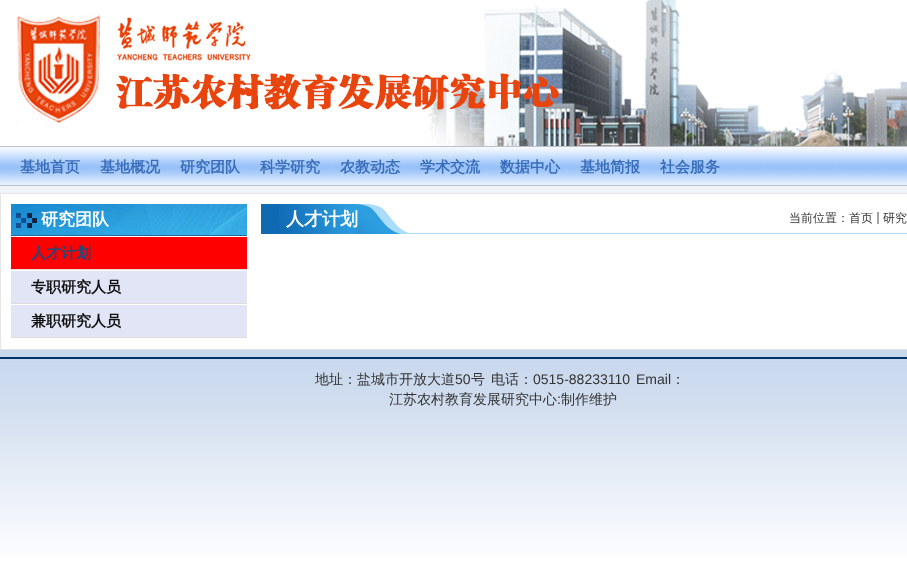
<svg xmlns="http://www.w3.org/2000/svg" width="907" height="571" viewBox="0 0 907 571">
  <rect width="100%" height="100%" fill="#fff"/>
  <image x="0" y="186" width="907" height="370" href="img/1.png"/>
  <image x="16" y="0" width="891" height="146" href="img/2.png"/>
  <image x="0" y="146" width="907" height="40" href="img/3.png"/>
  <path d="M0.5 193.5h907v156H0.5z" fill="#fff" stroke="#e5e5e5"/>
  <image x="11" y="204" width="236" height="31" href="img/4.png"/>
  <image x="16" y="213" width="21" height="15" href="img/5.png"/>
  <path d="M11 235h236v1H11z" fill="#2867a0"/>
  <path d="M11 237h236v32H11z" fill="#f00"/>
  <path d="M11 269h236v1H11z" fill="#ddd"/>
  <path d="M11 271h236v32H11z" fill="#e1e5f5"/>
  <path d="M11 303h236v1H11z" fill="#ddd"/>
  <path d="M11 305h236v32H11z" fill="#e1e5f5"/>
  <path d="M11 337h236v1H11z" fill="#ddd"/>
  <path d="M408 233h499v1H408z" fill="#abdcfd"/>
  <path d="M261 204h18v30H261z" fill="#0f6ab3"/>
  <image x="279" y="204" width="129" height="30" href="img/6.png"/>
  <path d="M877 212h2v12H877z" fill="#a2a2a2"/>
  <path d="M0 357h907v2H0z" fill="#036"/>
  <g font-family="WenQuanYi Zen Hei" font-size="15" font-weight="bold" fill="#3a6dba">
    <text x="20" y="172">基地首页</text>
    <text x="100" y="172">基地概况</text>
    <text x="180" y="172">研究团队</text>
    <text x="260" y="172">科学研究</text>
    <text x="340" y="172">农教动态</text>
    <text x="420" y="172">学术交流</text>
    <text x="500" y="172">数据中心</text>
    <text x="580" y="172">基地简报</text>
    <text x="660" y="172">社会服务</text>
  </g>
  <text x="41" y="225" font-family="WenQuanYi Zen Hei" font-size="17" font-weight="bold" fill="#fff">研究团队</text>
  <text x="31" y="258" font-family="WenQuanYi Zen Hei" font-size="15" font-weight="bold" fill="#124d83">人才计划</text>
  <g font-family="WenQuanYi Zen Hei" font-size="15" font-weight="bold" fill="#0f0f0f">
    <text x="31" y="292">专职研究人员</text>
    <text x="31" y="326">兼职研究人员</text>
  </g>
  <text x="286" y="225" font-family="WenQuanYi Zen Hei" font-size="18" font-weight="bold" fill="#fff">人才计划</text>
  <g font-family="WenQuanYi Zen Hei" font-size="12" font-weight="500" fill="#333">
    <text x="789" y="222">当前位置：首页</text>
    <text x="883" y="222">研究</text>
  </g>
  <text x="315" y="384" font-family="WenQuanYi Zen Hei" font-size="14" font-weight="500" fill="#333">地址：盐城市开放大道</text>
  <text x="455" y="384" font-family="Liberation Sans" font-size="14" fill="#333">50</text>
  <g font-family="WenQuanYi Zen Hei" font-size="14" font-weight="500" fill="#333">
    <text x="471" y="384">号</text>
    <text x="491" y="384">电话：</text>
  </g>
  <g font-family="Liberation Sans" font-size="14" fill="#333">
    <text x="533" y="384">0515-88233110</text>
    <text x="636" y="384">Email</text>
  </g>
  <g font-family="WenQuanYi Zen Hei" font-size="14" font-weight="500" fill="#333">
    <text x="671" y="384">：</text>
    <text x="389" y="404">江苏农村教育发展研究中心</text>
  </g>
  <text x="557" y="404" font-family="Liberation Sans" font-size="14" fill="#333">:</text>
  <text x="561" y="404" font-family="WenQuanYi Zen Hei" font-size="14" font-weight="500" fill="#333">制作维护</text>
</svg>
